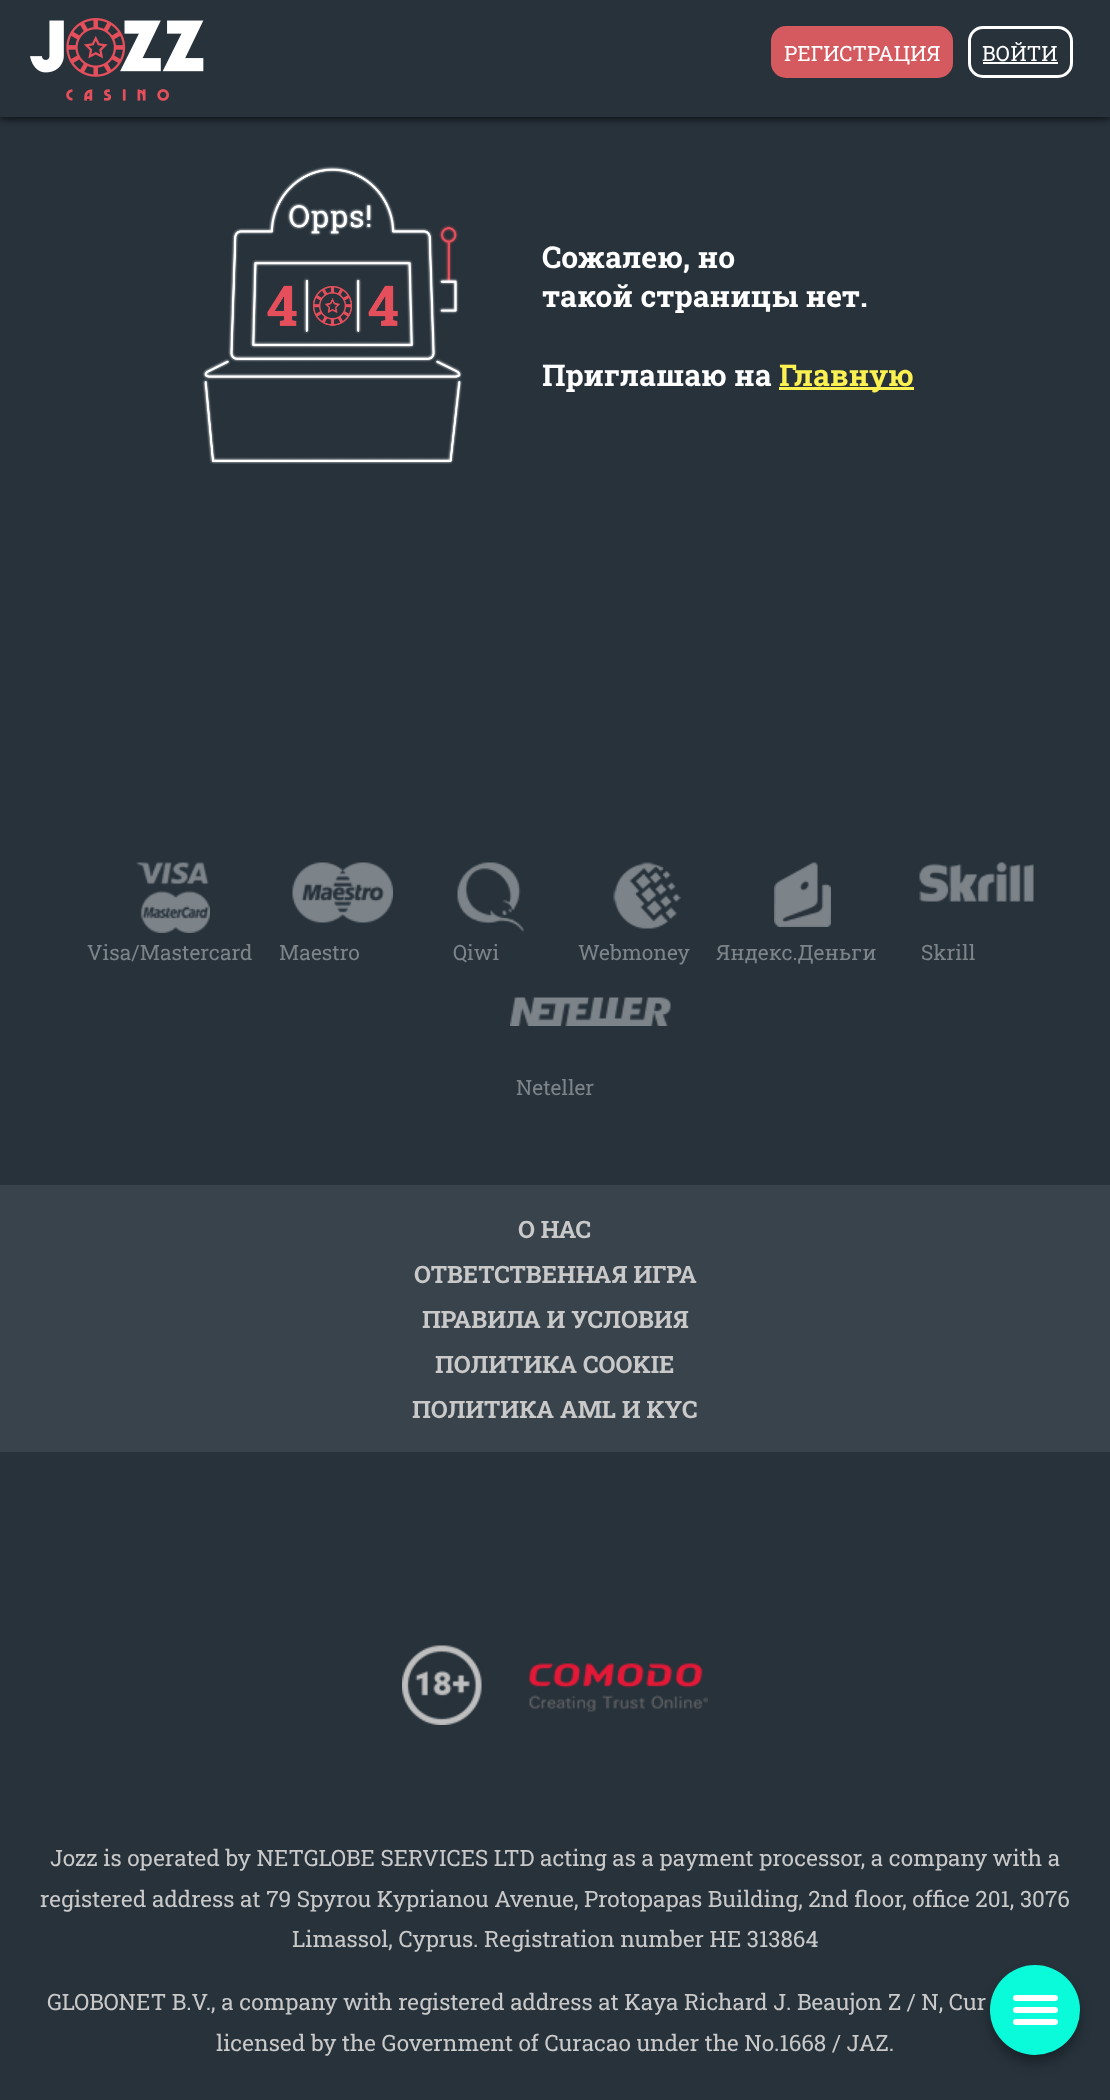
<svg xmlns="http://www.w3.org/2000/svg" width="1110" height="2100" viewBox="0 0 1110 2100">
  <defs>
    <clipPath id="clip1"><path d="M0 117h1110v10H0z"/></clipPath>
  </defs>
  <rect width="100%" height="100%" fill="#27323b"/>
  <g clip-path="url(#clip1)">
    <path d="M0 0h1110v117H0z" fill="#000" filter="blur(5px)"/>
  </g>
  <image x="30" y="18" width="174" height="83" href="img/1.png"/>
  <rect x="771" y="26" width="182" height="52" rx="15" fill="#d45a5f"/>
  <rect x="969.5" y="27.5" width="102" height="49" rx="13.5" fill="none" stroke="#fff" stroke-width="3"/>
  <path d="M983 62h75v2H983z" fill="#fff"/>
  <image x="202" y="166" width="261" height="298" href="img/2.png"/>
  <path d="M779 387h135v3H779z" fill="#fdf151"/>
  <image x="136" y="862" width="74" height="71" href="img/3.png"/>
  <image x="292" y="862" width="101" height="61" href="img/4.png"/>
  <image x="457" y="862" width="67" height="70" href="img/5.png"/>
  <image x="613" y="862" width="68" height="67" href="img/6.png"/>
  <image x="774" y="862" width="57" height="65" href="img/7.png"/>
  <image x="919" y="862" width="115" height="40" href="img/8.png"/>
  <image x="510" y="997" width="161" height="29" href="img/9.png"/>
  <path d="M0 1185h1110v267H0z" fill="#39434c"/>
  <image x="402" y="1645" width="80" height="80" href="img/10.png"/>
  <image x="529" y="1663" width="179" height="49" href="img/11.png"/>
  <rect x="990" y="1973" width="90" height="90" rx="45" fill="#0000004d" filter="blur(6px)"/>
  <circle cx="1035" cy="2010" r="45" fill="#0afbda"/>
  <rect x="1013" y="1995" width="45" height="6" rx="3" fill="#fff"/>
  <rect x="1013" y="2007" width="45" height="6" rx="3" fill="#fff"/>
  <rect x="1013" y="2019" width="45" height="6" rx="3" fill="#fff"/>
  <g font-family="Roboto Slab" font-size="21" fill="#fff">
    <text x="784" y="61">РЕГИСТРАЦИЯ</text>
    <text x="982" y="61">ВОЙТИ</text>
  </g>
  <g font-family="Roboto Slab" font-size="30" font-weight="bold" fill="#fff">
    <text x="542" y="268">Cожалею, но</text>
    <text x="542" y="307">такой страницы нет.</text>
    <text x="542" y="386">Приглашаю на</text>
  </g>
  <text x="779" y="386" font-family="Roboto Slab" font-size="30" font-weight="bold" fill="#fdf151">Главную</text>
  <g font-family="Roboto Slab" font-size="21" fill="#7d8489">
    <text x="87" y="960">Visa/Mastercard</text>
    <text x="279" y="960">Maestro</text>
    <text x="453" y="960">Qiwi</text>
    <text x="578" y="960">Webmoney</text>
    <text x="716" y="960">Яндекс.Деньги</text>
    <text x="921" y="960">Skrill</text>
    <text x="516" y="1095">Neteller</text>
  </g>
  <g font-family="Roboto Slab" font-size="24" font-weight="bold" fill="#c9c9c9">
    <text x="518" y="1238">О НАС</text>
    <text x="414" y="1283">ОТВЕТСТВЕННАЯ ИГРА</text>
    <text x="422" y="1328">ПРАВИЛА И УСЛОВИЯ</text>
    <text x="435" y="1373">ПОЛИТИКА COOKIE</text>
    <text x="412" y="1418">ПОЛИТИКА AML И KYC</text>
  </g>
  <g font-family="Roboto Slab" font-size="22.5" fill="#c9c9c9">
    <text x="50" y="1866">Jozz is operated by NETGLOBE SERVICES LTD acting as a payment processor, a company with a</text>
    <text x="40" y="1907">registered address at 79 Spyrou Kyprianou Avenue, Protopapas Building, 2nd floor, office 201, 3076</text>
    <text x="292" y="1947">Limassol, Cyprus. Registration number HE 313864</text>
    <text x="47" y="2010">GLOBONET B.V., a company with registered address at Kaya Richard J. Beaujon Z / N, Cur</text>
    <text x="216" y="2051">licensed by the Government of Curacao under the No.1668 / JAZ.</text>
  </g>
</svg>
